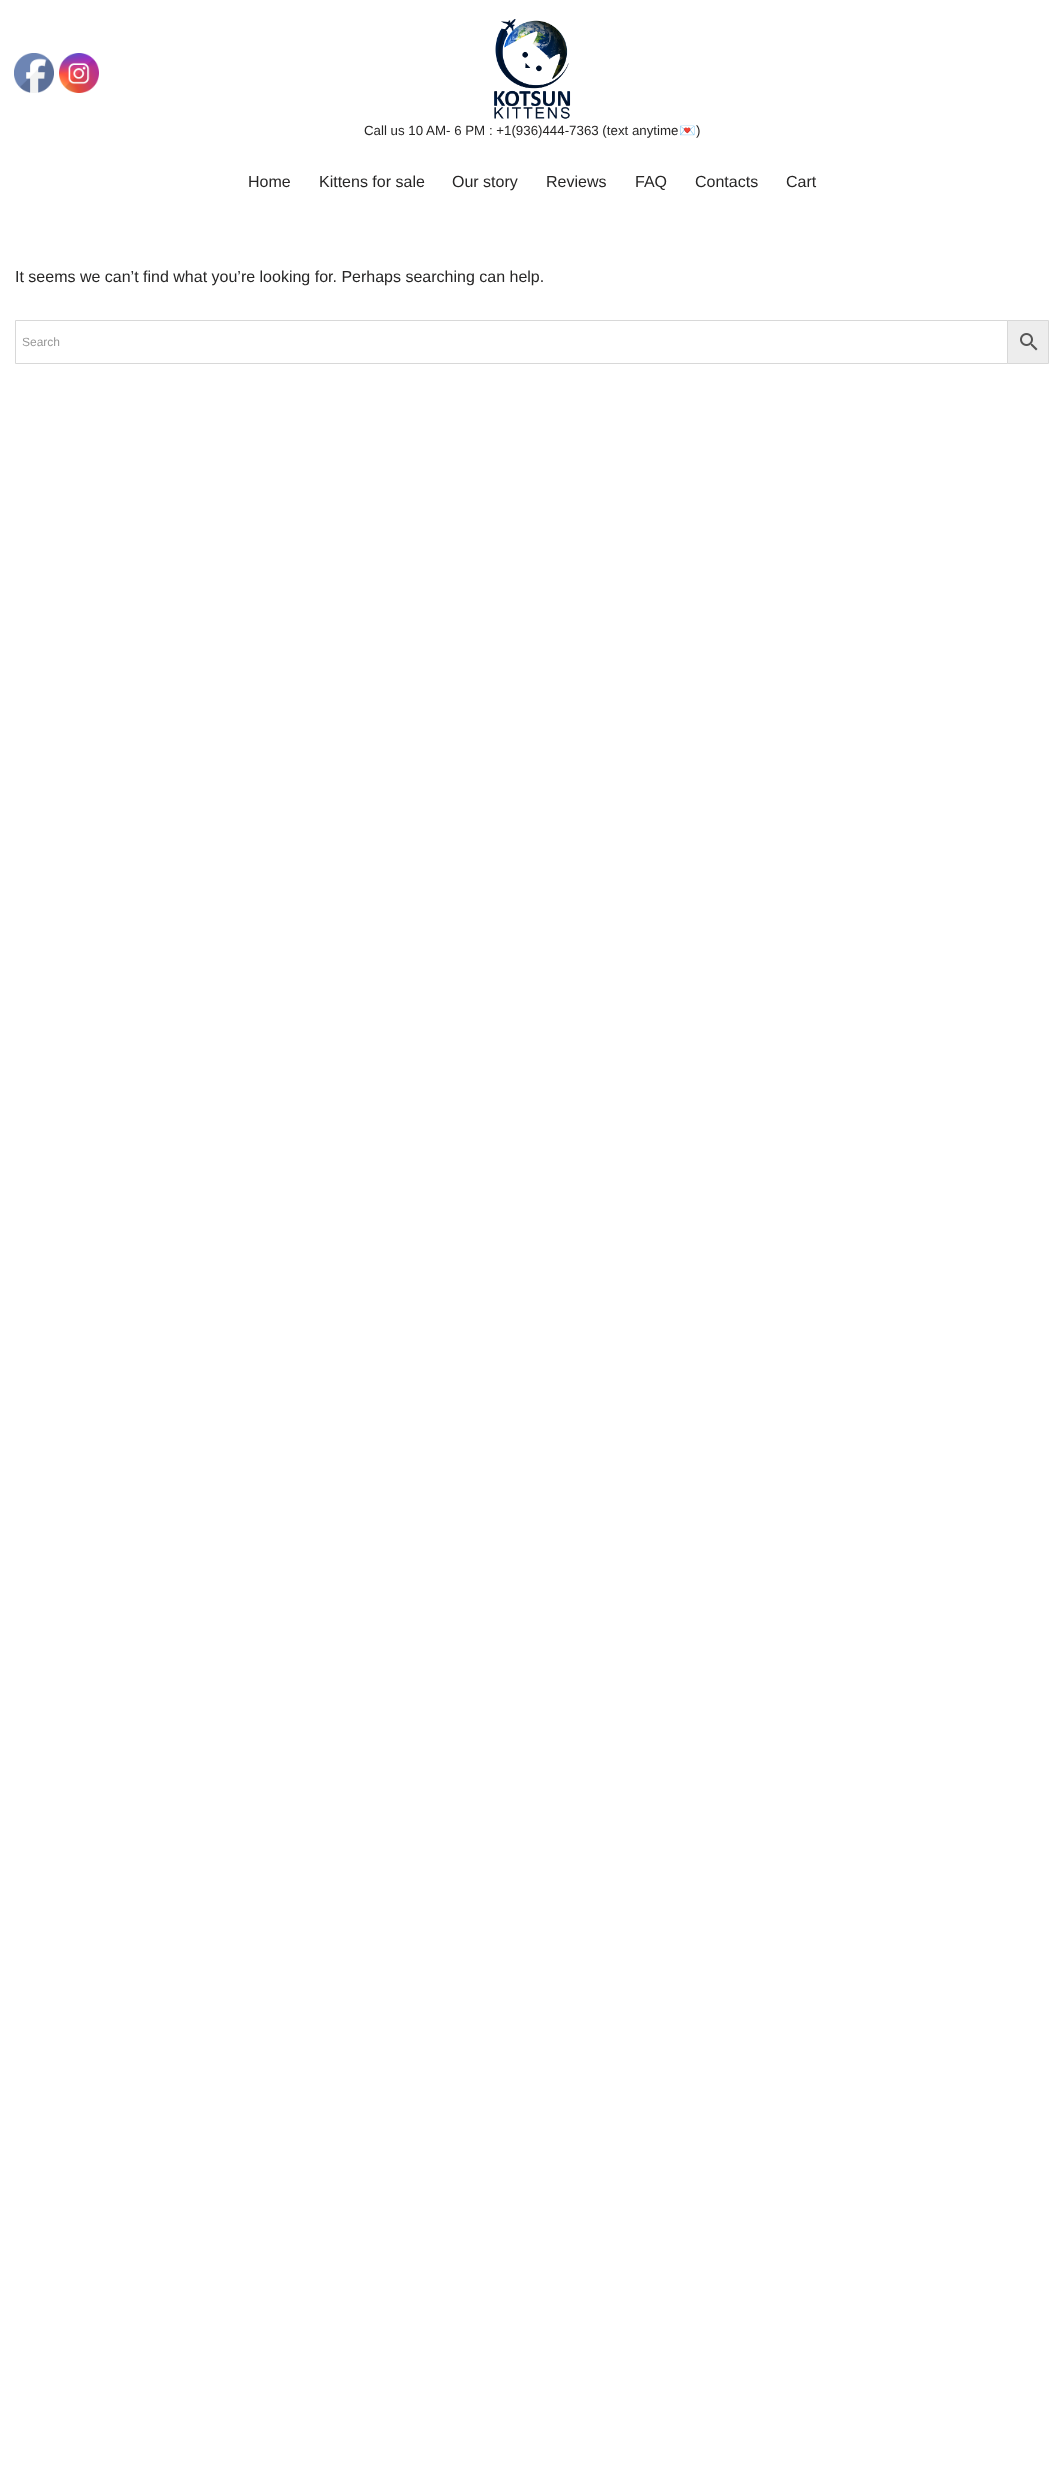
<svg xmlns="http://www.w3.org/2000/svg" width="1064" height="2469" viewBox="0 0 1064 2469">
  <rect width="100%" height="100%" fill="#fff"/>
  <image x="14" y="53" width="40" height="40" href="img/1.png"/>
  <image x="59" y="53" width="40" height="40" href="img/2.png"/>
  <image x="494" y="19" width="77" height="100" href="img/3.png"/>
  <path d="M1007.5 320.5h41v43H1007.5z" fill="#ededed" stroke="#d8d8d8"/>
  <path d="M15.5 320.5h992v43H15.5z" fill="none" stroke="#d8d8d8"/>
  <image x="1020" y="333" width="18" height="18" href="img/4.png"/>
  <text x="364" y="135" font-family="Liberation Sans" font-size="13.3" fill="#272626">Call us 10 AM- 6 PM : +1(936)444-7363 (text anytime</text>
  <text x="679" y="135" font-family="Noto Color Emoji" font-size="13.3" fill="#272626">💌</text>
  <text x="696" y="135" font-family="Liberation Sans" font-size="13.3" fill="#272626">)</text>
  <g font-family="Liberation Sans" font-size="16" fill="#272626">
    <text x="248" y="187">Home</text>
    <text x="319" y="187">Kittens for sale</text>
    <text x="452" y="187">Our story</text>
    <text x="546" y="187">Reviews</text>
    <text x="635" y="187">FAQ</text>
    <text x="695" y="187">Contacts</text>
    <text x="786" y="187">Cart</text>
    <text x="15" y="282">It seems we can’t find what you’re looking for. Perhaps searching can help.</text>
  </g>
  <text x="22" y="346" font-family="Liberation Sans" font-size="12" fill="#989898">Search</text>
</svg>
